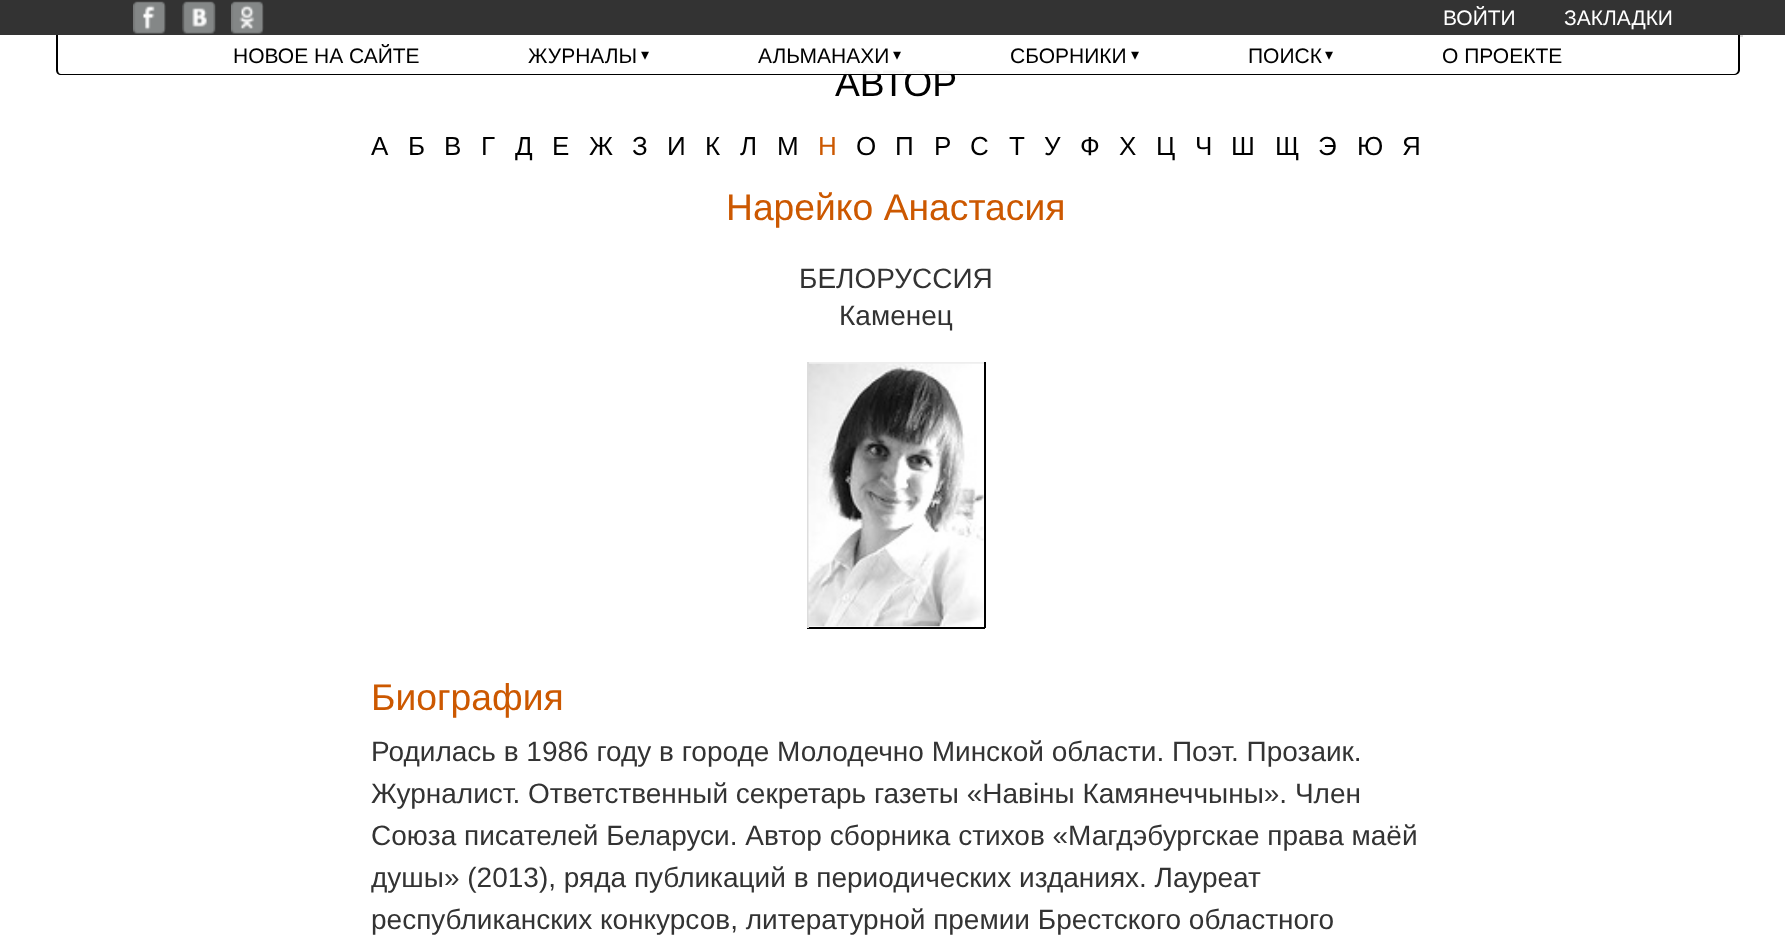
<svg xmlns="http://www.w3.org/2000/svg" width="1785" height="935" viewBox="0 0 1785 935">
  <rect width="100%" height="100%" fill="#fff"/>
  <path d="M1415 -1h327v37H1415z" fill="none" stroke="#dadada" stroke-width="2"/>
  <path d="M0 0h1785v35H0z" fill="#333"/>
  <image x="133" y="1" width="33" height="33" href="img/1.png"/>
  <image x="182" y="1" width="34" height="33" href="img/2.png"/>
  <image x="231" y="1" width="33" height="33" href="img/3.png"/>
  <path d="M807 362h178v2H807z" fill="#eee"/>
  <path d="M984 362h2v266H984z" fill="#000"/>
  <path d="M807 627h178v2H807z" fill="#000"/>
  <path d="M807 362h2v266H807z" fill="#ddd"/>
  <image x="808" y="363" width="176" height="264" href="img/4.png"/>
  <g font-family="Liberation Sans" font-size="21" fill="#fff">
    <text x="1443" y="25">ВОЙТИ</text>
    <text x="1564" y="25">ЗАКЛАДКИ</text>
  </g>
  <text x="835" y="96" font-family="Liberation Sans" font-size="37.25" fill="#000">АВТОР</text>
  <path d="M56 35H1740V70C1740 73 1738 75 1735 75H61C58 75 56 73 56 70Z" fill="#fffffff5"/>
  <path d="M56 35H1740V70C1740 73 1737 75 1734 75H61C58 75 56 73 56 70ZM58 35H1738V70C1738 72 1736 74 1734 74H61C59 74 58 72 58 70Z" fill="#000" fill-rule="evenodd"/>
  <g font-family="DejaVu Sans" font-size="16" fill="#000">
    <text x="1325" y="60">▾</text>
    <text x="1131" y="60">▾</text>
    <text x="893" y="60">▾</text>
    <text x="641" y="60">▾</text>
  </g>
  <g font-family="Liberation Sans" font-size="21" fill="#000">
    <text x="1442" y="63">О ПРОЕКТЕ</text>
    <text x="1248" y="63">ПОИСК</text>
    <text x="1010" y="63">СБОРНИКИ</text>
    <text x="758" y="63">АЛЬМАНАХИ</text>
    <text x="528" y="63">ЖУРНАЛЫ</text>
    <text x="233" y="63">НОВОЕ НА САЙТЕ</text>
  </g>
  <g font-family="Liberation Sans" font-size="26" fill="#000">
    <text x="371" y="155">А</text>
    <text x="408" y="155">Б</text>
    <text x="444" y="155">В</text>
    <text x="481" y="155">Г</text>
    <text x="515" y="155">Д</text>
    <text x="552" y="155">Е</text>
    <text x="589" y="155">Ж</text>
    <text x="632" y="155">З</text>
    <text x="667" y="155">И</text>
    <text x="705" y="155">К</text>
    <text x="740" y="155">Л</text>
    <text x="777" y="155">М</text>
  </g>
  <text x="818" y="155" font-family="Liberation Sans" font-size="26" fill="#cc5800">Н</text>
  <g font-family="Liberation Sans" font-size="26" fill="#000">
    <text x="856" y="155">О</text>
    <text x="895" y="155">П</text>
    <text x="934" y="155">Р</text>
    <text x="970" y="155">С</text>
    <text x="1009" y="155">Т</text>
    <text x="1044" y="155">У</text>
    <text x="1080" y="155">Ф</text>
    <text x="1119" y="155">Х</text>
    <text x="1156" y="155">Ц</text>
    <text x="1195" y="155">Ч</text>
    <text x="1231" y="155">Ш</text>
    <text x="1275" y="155">Щ</text>
    <text x="1318" y="155">Э</text>
    <text x="1357" y="155">Ю</text>
    <text x="1402" y="155">Я</text>
  </g>
  <text x="726" y="220" font-family="Liberation Sans" font-size="37.25" fill="#cc5800">Нарейко Анастасия</text>
  <g font-family="Liberation Sans" font-size="28" fill="#333">
    <text x="799" y="288">БЕЛОРУССИЯ</text>
    <text x="839" y="325">Каменец</text>
  </g>
  <text x="371" y="710" font-family="Liberation Sans" font-size="37.25" fill="#cc5800">Биография</text>
  <g font-family="Liberation Sans" font-size="28" fill="#333">
    <text x="371" y="761">Родилась в 1986 году в городе Молодечно Минской области. Поэт. Прозаик.</text>
    <text x="371" y="803">Журналист. Ответственный секретарь газеты «Навіны Камянеччыны». Член</text>
    <text x="371" y="845">Союза писателей Беларуси. Автор сборника стихов «Магдэбургскае права маёй</text>
    <text x="371" y="887">душы» (2013), ряда публикаций в периодических изданиях. Лауреат</text>
    <text x="371" y="929">республиканских конкурсов, литературной премии Брестского областного</text>
  </g>
</svg>
